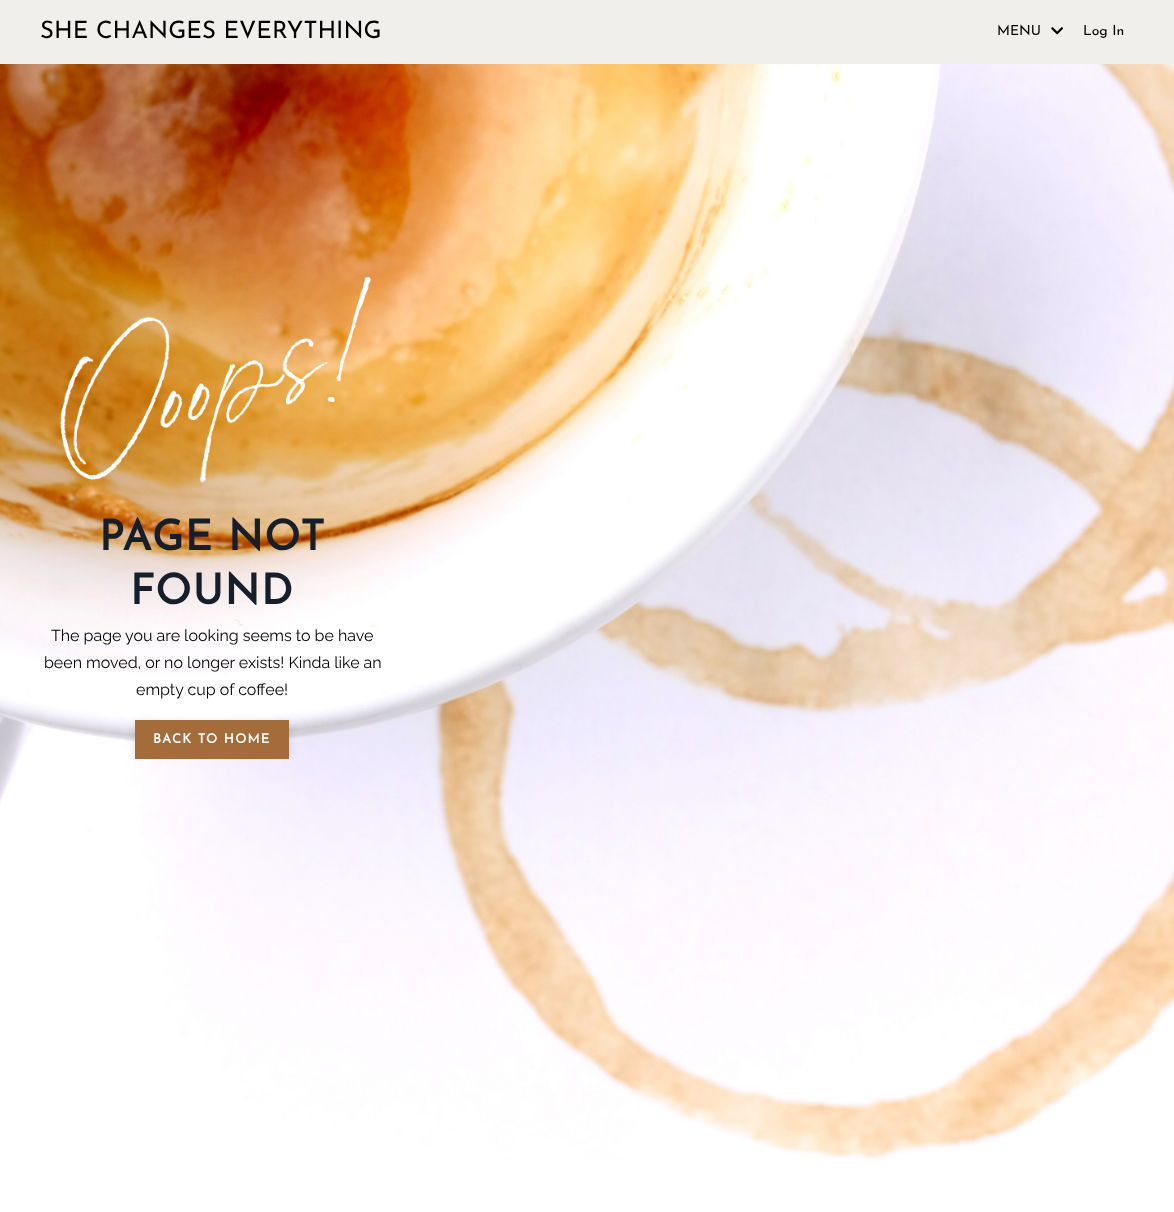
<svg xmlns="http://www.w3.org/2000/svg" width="1174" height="1212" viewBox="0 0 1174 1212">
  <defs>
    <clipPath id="clip1"><rect x="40" y="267" width="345" height="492" rx="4"/></clipPath>
  </defs>
  <rect width="100%" height="100%" fill="#fff"/>
  <path d="M0 0h1174v64H0z" fill="#f0efeb"/>
  <image x="1051" y="27" width="12" height="8" href="img/1.png"/>
  <image x="0" y="64" width="1174" height="1096" href="img/2.png"/>
  <image x="60" y="276" width="311" height="207" href="img/3.png"/>
  <g clip-path="url(#clip1)">
    <path d="M135 722h154v39H135z" fill="#0000001a" filter="blur(5px)"/>
  </g>
  <path d="M135 720h154v39H135z" fill="#a46c3b"/>
  <text x="40" y="38" font-family="Josefin Sans" font-size="24" font-weight="100" fill="#000">SHE CHANGES EVERYTHING</text>
  <g font-family="Josefin Sans" font-size="14" font-weight="100" fill="#000">
    <text x="997" y="35">MENU</text>
    <text x="1083" y="35">Log In</text>
  </g>
  <g font-family="Josefin Sans" font-size="42" font-weight="bold" letter-spacing="1.25" fill="#161e2a">
    <text x="99" y="550">PAGE NOT</text>
    <text x="130" y="604">FOUND</text>
  </g>
  <g font-family="Raleway" font-size="16" fill="#000">
    <text x="51" y="641">The page you are looking seems to be have</text>
    <text x="44" y="668">been moved, or no longer exists! Kinda like an</text>
    <text x="136" y="695">empty cup of coffee!</text>
  </g>
  <text x="153" y="743" font-family="Josefin Sans" font-size="13" font-weight="bold" letter-spacing="1.25" fill="#fff">BACK TO HOME</text>
</svg>
